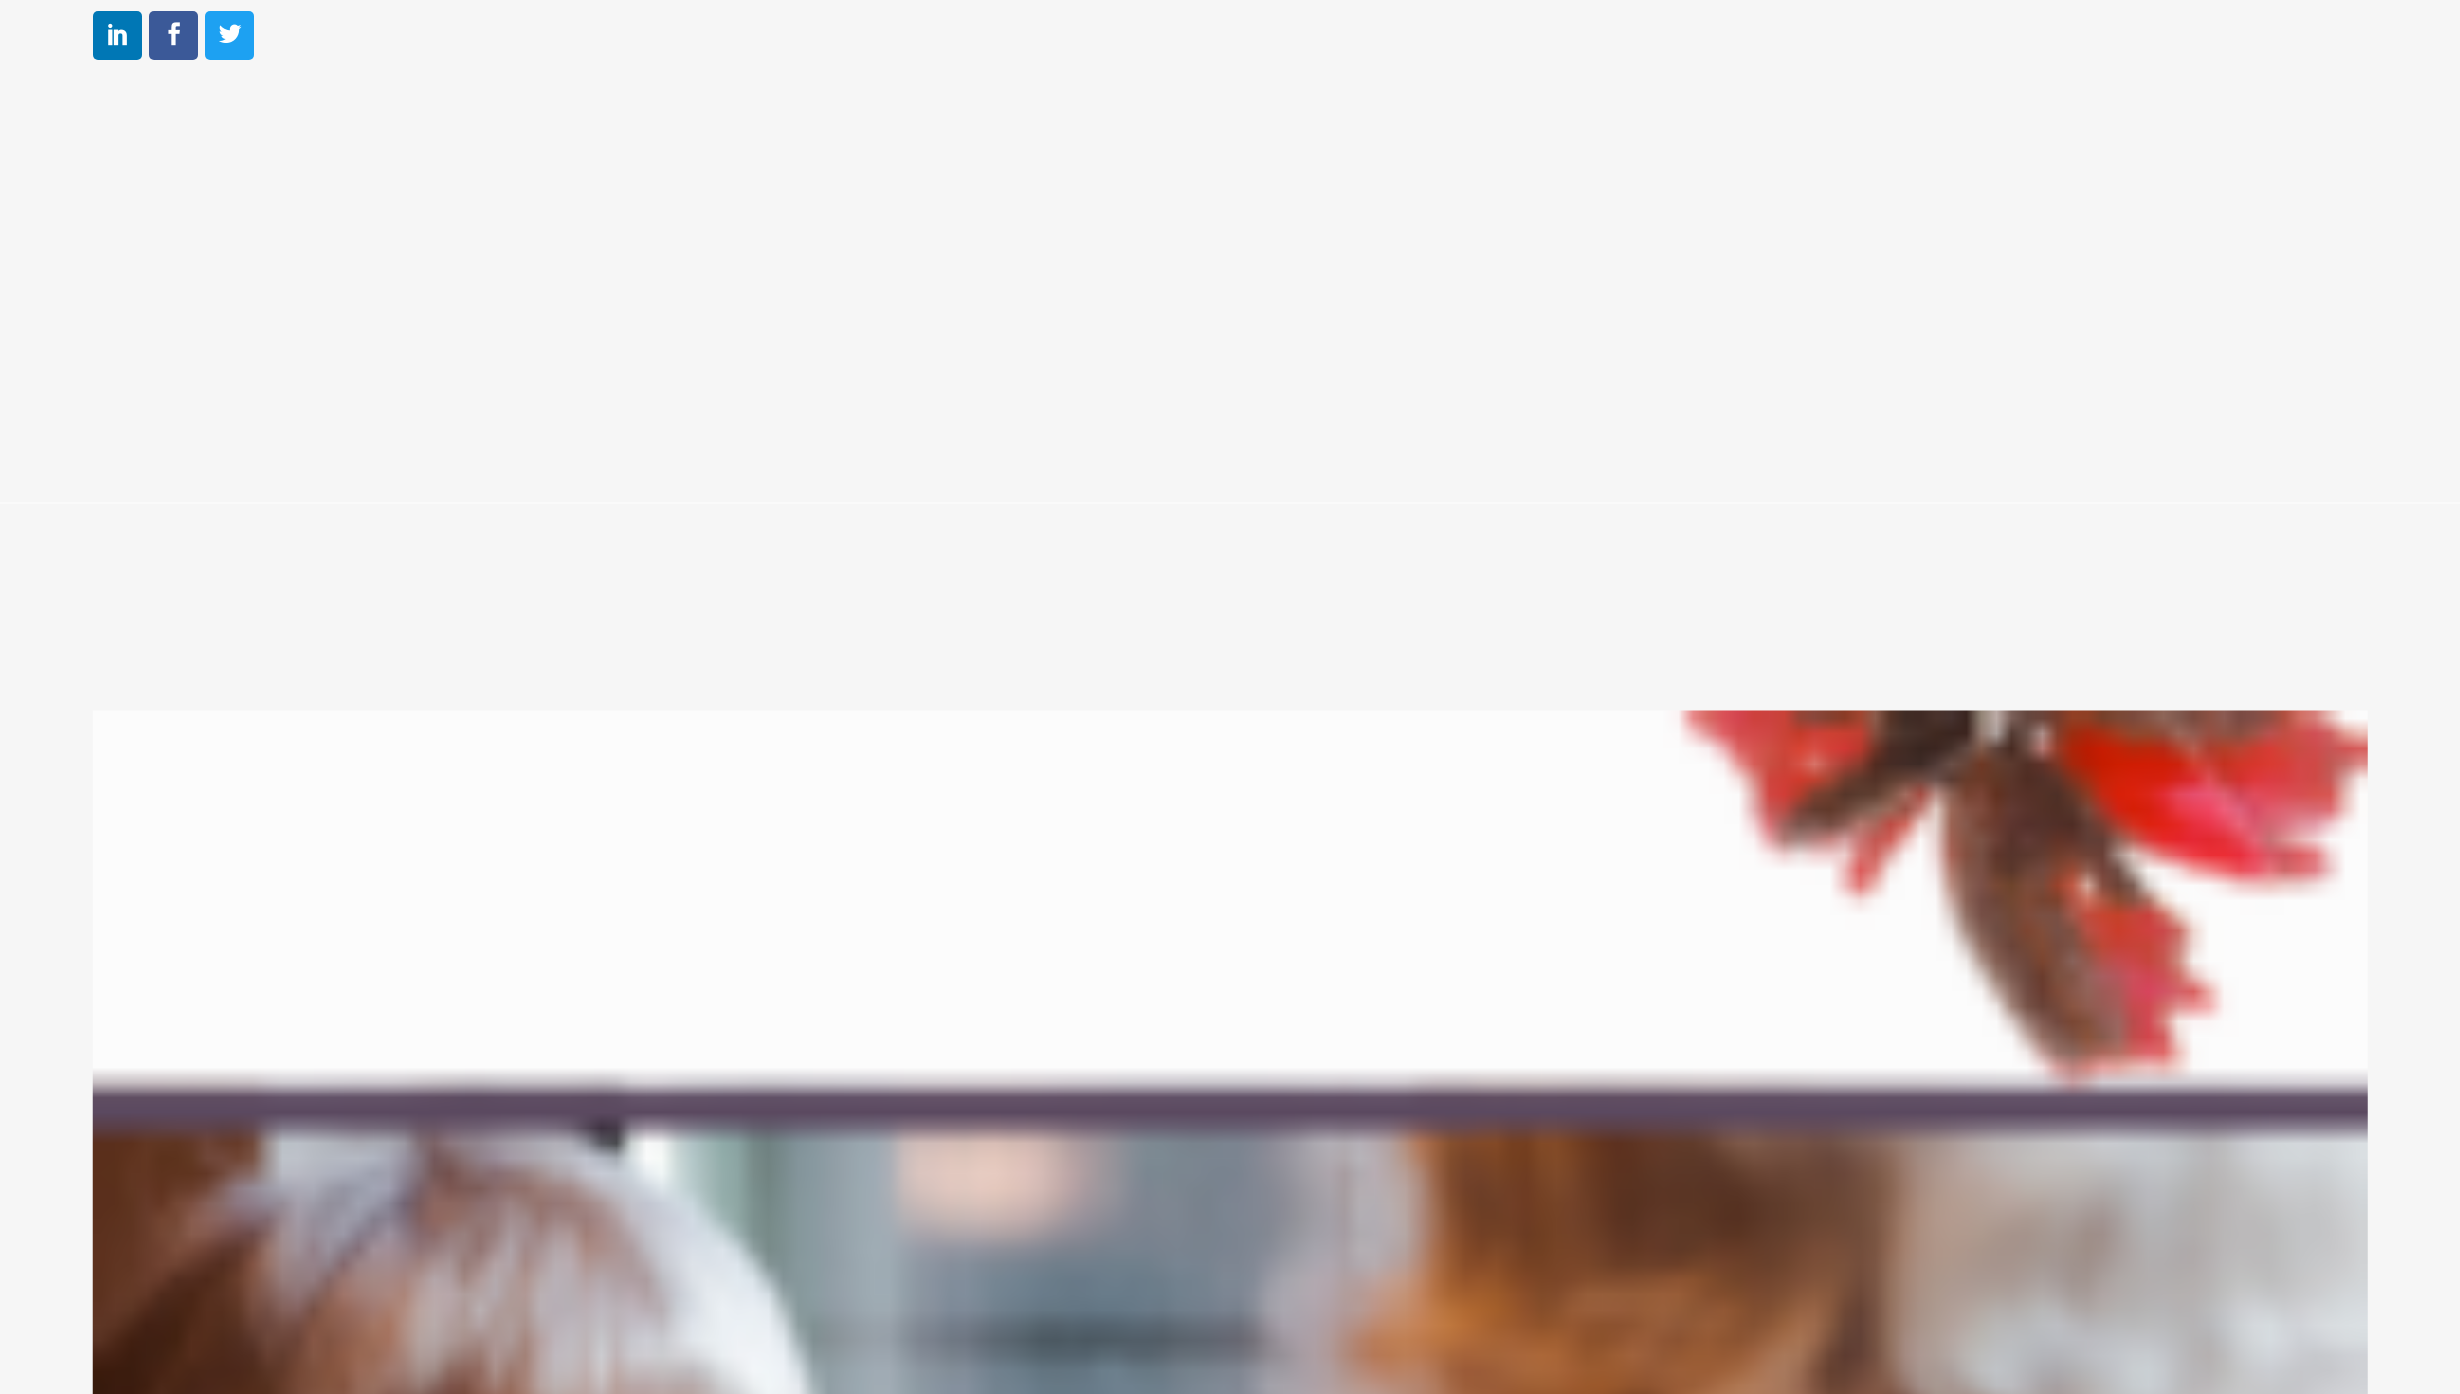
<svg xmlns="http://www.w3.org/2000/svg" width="2460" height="1394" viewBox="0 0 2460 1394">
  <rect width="100%" height="100%" fill="#f6f6f6"/>
  <rect x="93" y="11" width="49" height="49" rx="5" fill="#0077b5"/>
  <image x="108" y="23" width="19" height="23" href="img/1.png"/>
  <rect x="149" y="11" width="49" height="49" rx="5" fill="#3b5998"/>
  <image x="168" y="22" width="12" height="24" href="img/2.png"/>
  <rect x="205" y="11" width="49" height="49" rx="5" fill="#1da1f2"/>
  <image x="219" y="24" width="23" height="19" href="img/3.png"/>
  <path d="M0 502h2460v2H0z" fill="#fafafa"/>
  <image x="92" y="710" width="2276" height="684" href="img/4.png"/>
</svg>
